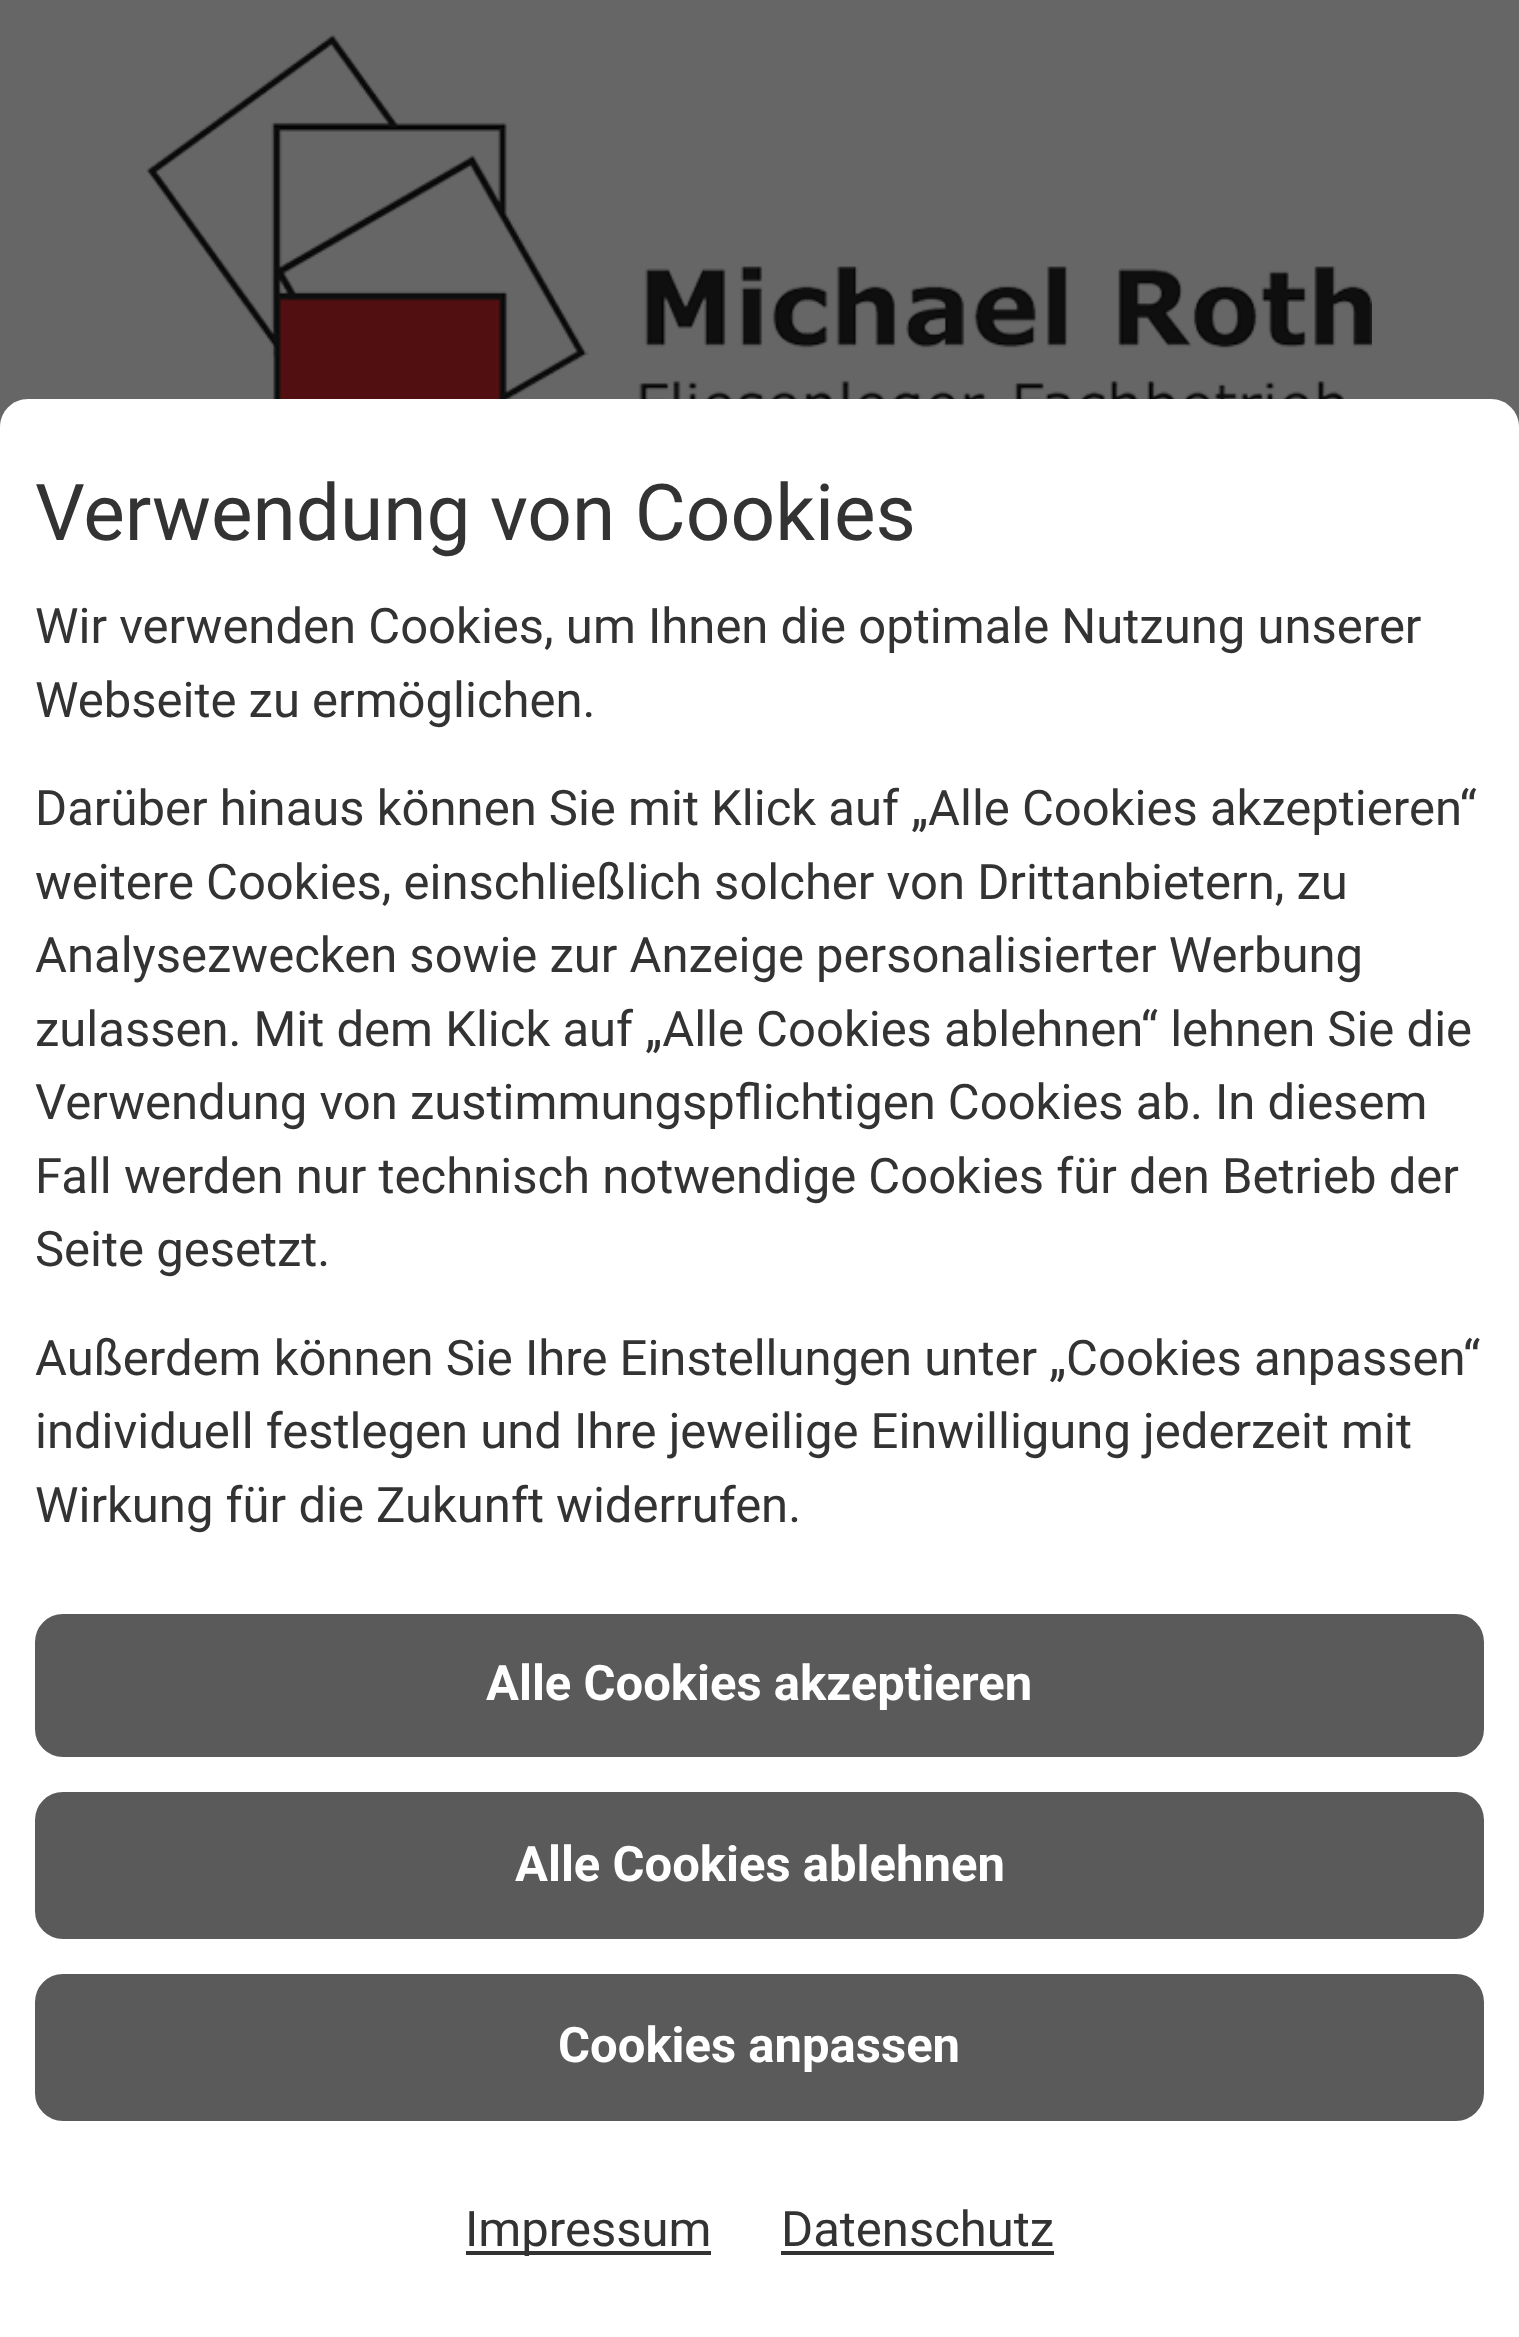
<svg xmlns="http://www.w3.org/2000/svg" width="1519" height="2337" viewBox="0 0 1519 2337">
  <rect width="100%" height="100%" fill="#666"/>
  <image x="147" y="35" width="1225" height="364" href="img/1.png"/>
  <path d="M28 399H1491C1506.5 399 1519 411.5 1519 427V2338H0V427C0 411.5 12.5 399 28 399Z" fill="#fff"/>
  <rect x="37" y="1616" width="1445" height="139" rx="26" fill="#5a5a5a" stroke="#5a5a5a" stroke-width="4"/>
  <rect x="37" y="1794" width="1445" height="143" rx="26" fill="#5a5a5a" stroke="#5a5a5a" stroke-width="4"/>
  <rect x="37" y="1976" width="1445" height="143" rx="26" fill="#5a5a5a" stroke="#5a5a5a" stroke-width="4"/>
  <path d="M466 2251h245v4H466z" fill="#333"/>
  <path d="M781 2251h273v4H781z" fill="#333"/>
  <text x="35" y="540" font-family="Roboto" font-size="78.4" fill="#333">Verwendung von Cookies</text>
  <g font-family="Roboto" font-size="49" fill="#333">
    <text x="35" y="643">Wir verwenden Cookies, um Ihnen die optimale Nutzung unserer</text>
    <text x="35" y="717">Webseite zu ermöglichen.</text>
    <text x="35" y="825">Darüber hinaus können Sie mit Klick auf „Alle Cookies akzeptieren“</text>
    <text x="35" y="899">weitere Cookies, einschließlich solcher von Drittanbietern, zu</text>
    <text x="35" y="972">Analysezwecken sowie zur Anzeige personalisierter Werbung</text>
    <text x="35" y="1046">zulassen. Mit dem Klick auf „Alle Cookies ablehnen“ lehnen Sie die</text>
    <text x="35" y="1119">Verwendung von zustimmungspflichtigen Cookies ab. In diesem</text>
    <text x="35" y="1193">Fall werden nur technisch notwendige Cookies für den Betrieb der</text>
    <text x="35" y="1266">Seite gesetzt.</text>
    <text x="35" y="1375">Außerdem können Sie Ihre Einstellungen unter „Cookies anpassen“</text>
    <text x="35" y="1448">individuell festlegen und Ihre jeweilige Einwilligung jederzeit mit</text>
    <text x="35" y="1522">Wirkung für die Zukunft widerrufen.</text>
  </g>
  <g font-family="Roboto" font-size="49" font-weight="bold" fill="#fff">
    <text x="486" y="1700">Alle Cookies akzeptieren</text>
    <text x="515" y="1881">Alle Cookies ablehnen</text>
    <text x="558" y="2062">Cookies anpassen</text>
  </g>
  <g font-family="Roboto" font-size="49" fill="#333">
    <text x="465" y="2246">Impressum</text>
    <text x="781" y="2246">Datenschutz</text>
  </g>
</svg>
